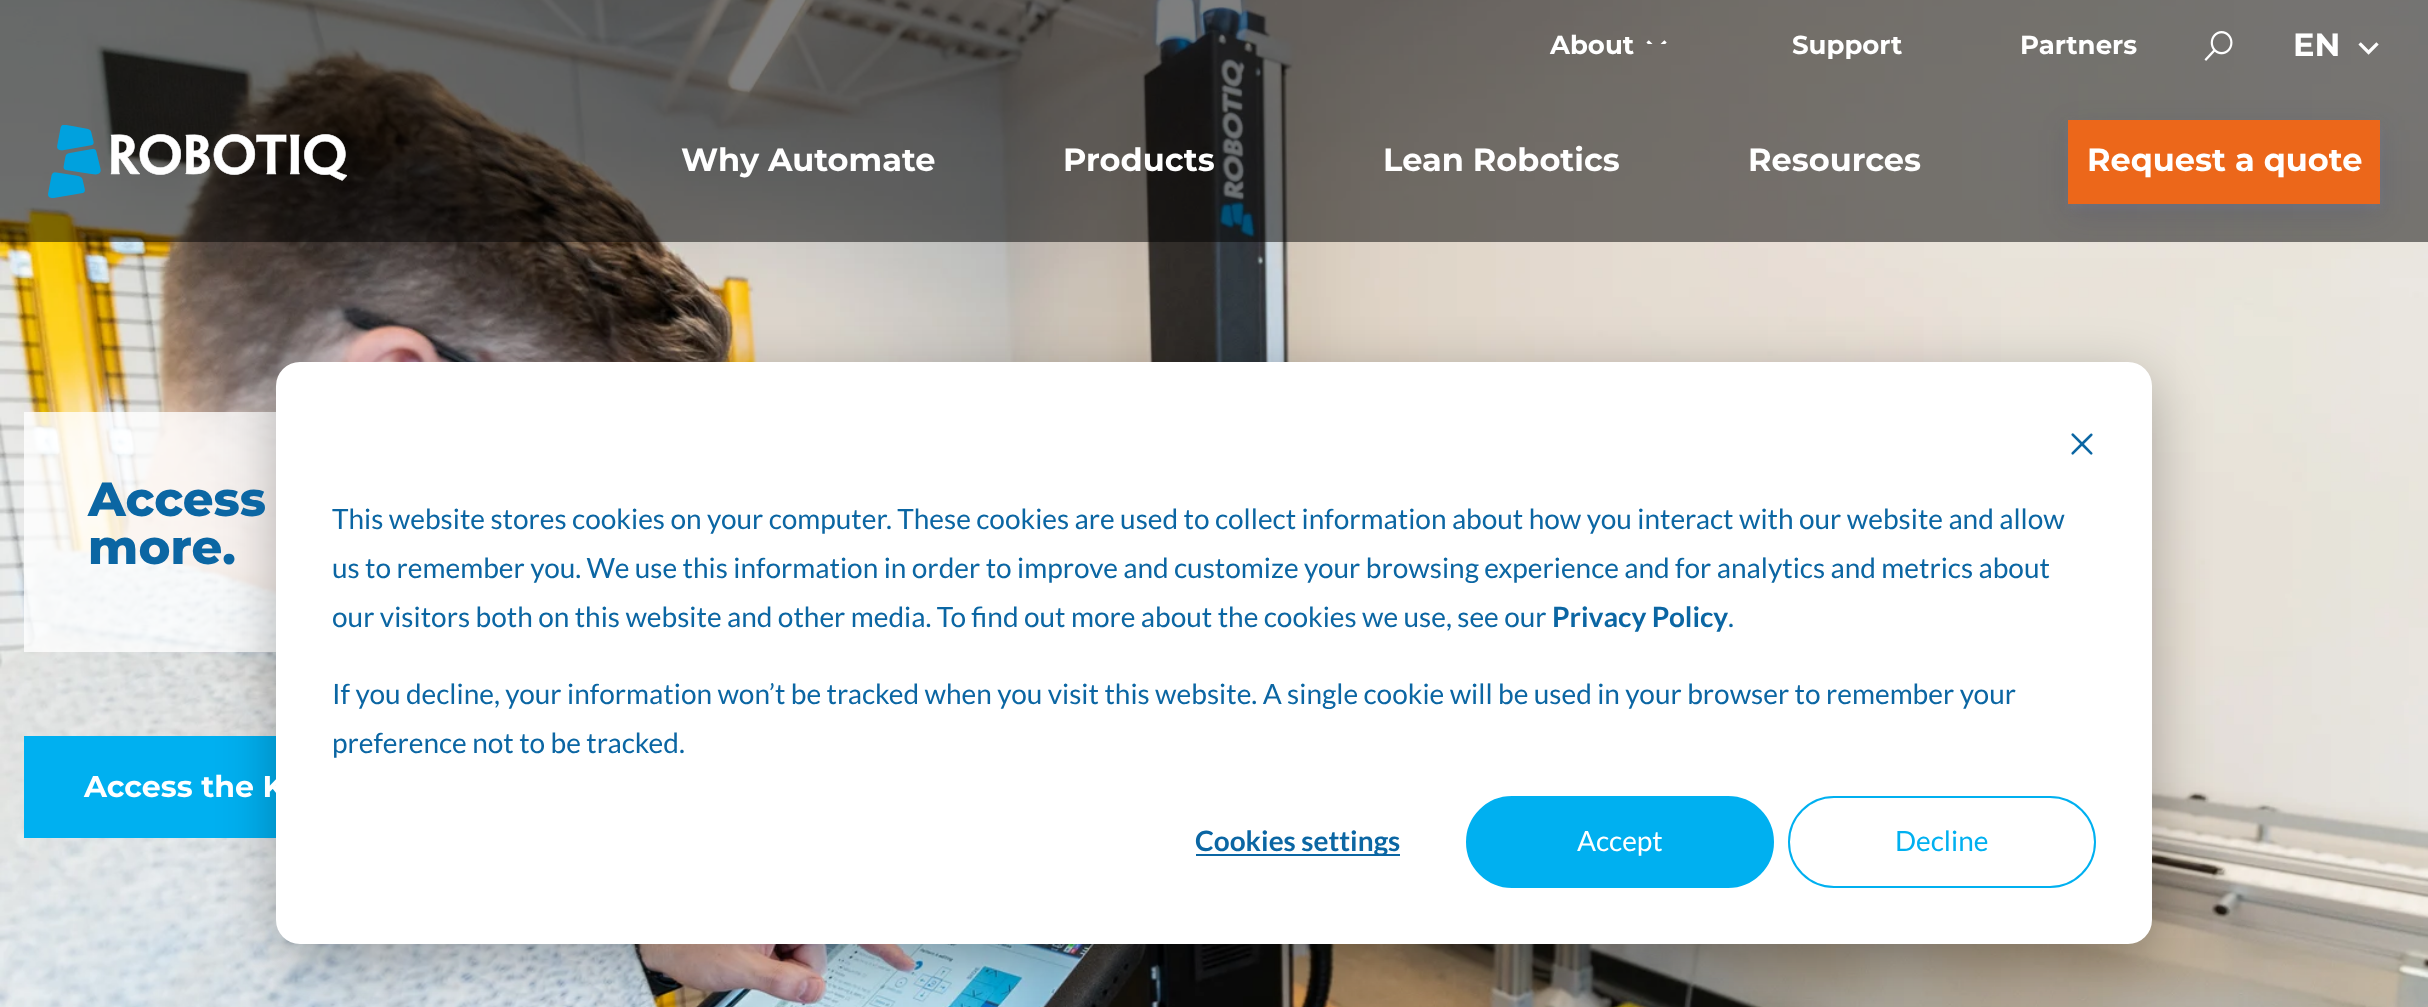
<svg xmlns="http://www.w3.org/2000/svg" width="2428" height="1007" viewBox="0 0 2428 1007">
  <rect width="100%" height="100%" fill="#fff"/>
  <image x="0" y="0" width="2428" height="1007" href="img/5.png"/>
  <path d="M0 0h2428v242H0z" fill="#00000080"/>
  <image x="1646" y="40" width="21" height="4" href="img/1.png"/>
  <image x="2204" y="31" width="29" height="30" href="img/2.png"/>
  <image x="2358" y="42" width="21" height="13" href="img/3.png"/>
  <image x="48" y="125" width="299" height="73" href="img/4.png"/>
  <path d="M2068 124h312v84H2068z" fill="#8890c233" filter="blur(4px)"/>
  <path d="M2068 130h312v84H2068z" fill="#252c6126" filter="blur(15px)"/>
  <path d="M2068 120h312v84H2068z" fill="#ec671a"/>
  <path d="M24 412h252v240H24z" fill="#ffffffcc"/>
  <path d="M24 736h252v102H24z" fill="#00b0f0"/>
  <rect x="276" y="378" width="1876" height="582" rx="24" fill="#00000047" filter="blur(28px)"/>
  <rect x="276" y="362" width="1876" height="582" rx="24" fill="#fff"/>
  <image x="2071" y="433" width="22" height="22" href="img/6.png"/>
  <path d="M1196 854h204v2H1196z" fill="#0b66a3"/>
  <rect x="1467" y="797" width="306" height="90" rx="45" fill="#00b0f0" stroke="#00b0f0" stroke-width="2"/>
  <rect x="1789" y="797" width="306" height="90" rx="45" fill="none" stroke="#00b0f0" stroke-width="2"/>
  <g font-family="Montserrat" font-size="26" font-weight="bold" fill="#fff">
    <text x="1550" y="54">About</text>
    <text x="1792" y="54">Support</text>
    <text x="2020" y="54">Partners</text>
  </g>
  <g font-family="Montserrat" font-size="32" font-weight="bold" fill="#fff">
    <text x="2293" y="56">EN</text>
    <text x="681" y="171">Why Automate</text>
    <text x="1063" y="171">Products</text>
    <text x="1383" y="171">Lean Robotics</text>
    <text x="1748" y="171">Resources</text>
    <text x="2087" y="171">Request a quote</text>
  </g>
  <g font-family="Montserrat" font-size="48" font-weight="800" fill="#0b66a3">
    <text x="88" y="516">Access</text>
    <text x="88" y="564">more.</text>
  </g>
  <text x="84" y="797" font-family="Montserrat" font-size="30" font-weight="bold" fill="#fff">Access the K</text>
  <g font-family="Lato" font-size="28" fill="#0b66a3">
    <text x="332" y="529">This website stores cookies on your computer. These cookies are used to collect information about how you interact with our website and allow</text>
    <text x="332" y="578">us to remember you. We use this information in order to improve and customize your browsing experience and for analytics and metrics about</text>
    <text x="332" y="627">our visitors both on this website and other media. To find out more about the cookies we use, see our</text>
  </g>
  <text x="1552" y="627" font-family="Lato" font-size="28" font-weight="bold" fill="#0b66a3">Privacy Policy</text>
  <g font-family="Lato" font-size="28" fill="#0b66a3">
    <text x="1728" y="627">.</text>
    <text x="332" y="704">If you decline, your information won’t be tracked when you visit this website. A single cookie will be used in your browser to remember your</text>
    <text x="332" y="753">preference not to be tracked.</text>
  </g>
  <text x="1195" y="851" font-family="Lato" font-size="28" font-weight="bold" fill="#0b66a3">Cookies settings</text>
  <text x="1577" y="851" font-family="Lato" font-size="28" fill="#fff">Accept</text>
  <text x="1895" y="851" font-family="Lato" font-size="28" fill="#00b0f0">Decline</text>
</svg>
